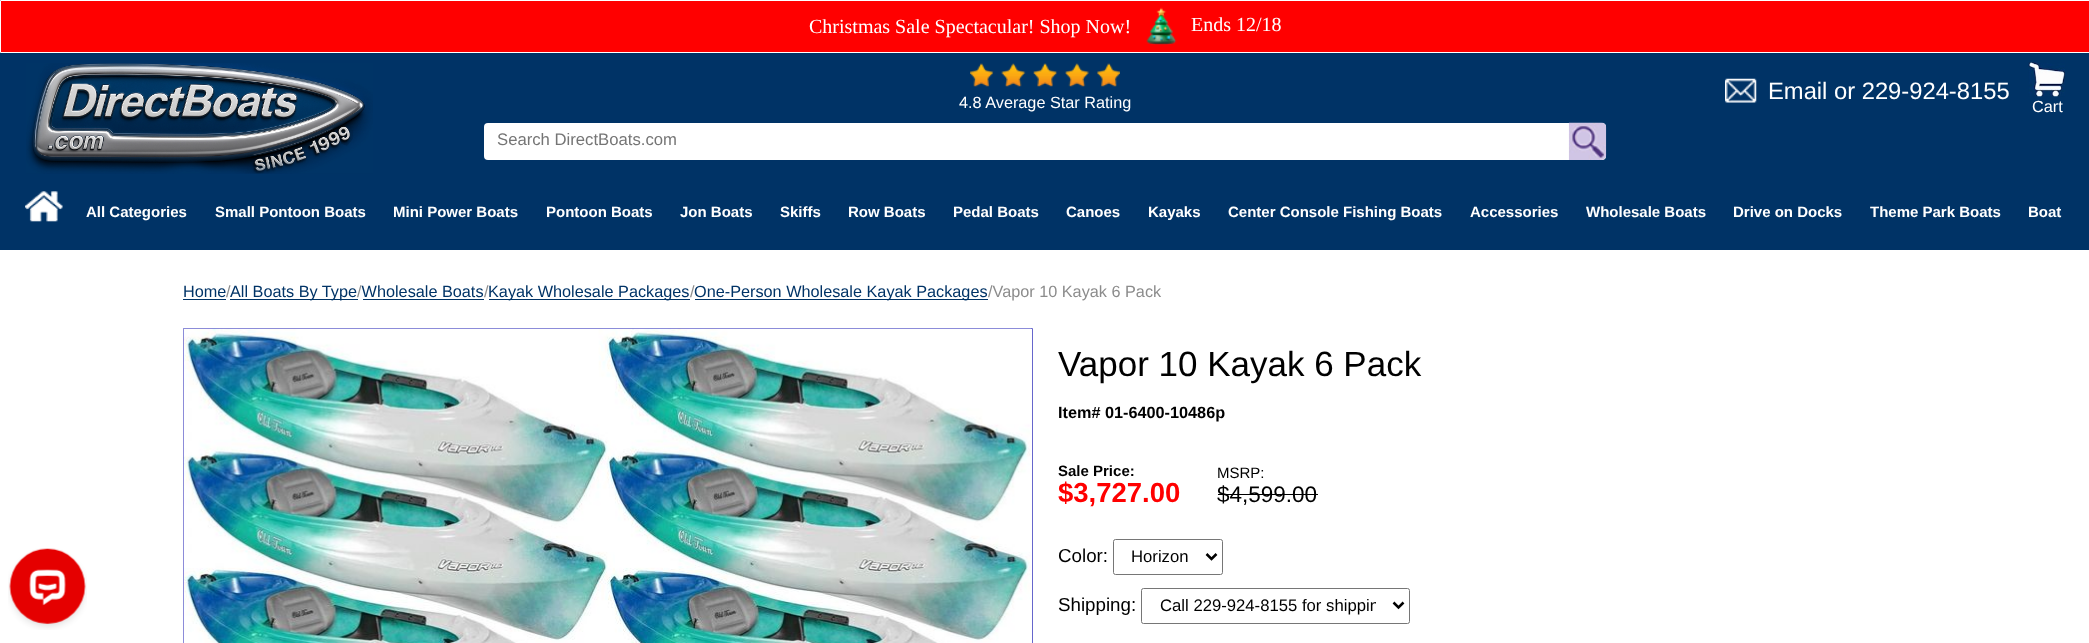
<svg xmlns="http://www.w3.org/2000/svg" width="2089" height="643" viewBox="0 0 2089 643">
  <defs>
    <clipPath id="clip1"><path d="M1160 595h216v21H1160z"/></clipPath>
  </defs>
  <rect width="100%" height="100%" fill="#036"/>
  <path d="M0 250h2089v393H0z" fill="#fff"/>
  <image x="8" y="548" width="79" height="82" href="img/1.png"/>
  <path d="M0.5 0.5h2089v52H0.5z" fill="#f00" stroke="#fff"/>
  <image x="1146" y="7" width="31" height="38" href="img/2.png"/>
  <image x="26" y="63" width="347" height="111" href="img/3.png"/>
  <image x="1725" y="78" width="32" height="25" href="img/4.png"/>
  <image x="970" y="63" width="150" height="24" href="img/5.png"/>
  <rect x="484" y="123" width="1122" height="37" rx="4" fill="#fff"/>
  <image x="1568" y="122" width="39" height="38" href="img/6.png"/>
  <image x="2028" y="62" width="37" height="35" href="img/7.png"/>
  <image x="25" y="191" width="38" height="31" href="img/8.png"/>
  <path d="M183 299h43v1H183z" fill="#036"/>
  <path d="M230 299h128v1H230z" fill="#036"/>
  <path d="M363 299h121v1H363z" fill="#036"/>
  <path d="M489 299h201v1H489z" fill="#036"/>
  <path d="M695 299h293v1H695z" fill="#036"/>
  <path d="M183.5 328.5h849v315H183.5z" fill="none" stroke="#66c"/>
  <image x="183" y="328" width="849" height="315" href="img/9.png"/>
  <path d="M1218 494h100v1H1218z" fill="#000"/>
  <rect x="1113.5" y="539.5" width="109" height="35" rx="2" fill="none" stroke="#767676"/>
  <path d="M1206.5 554L1211.5 559L1216.5 554" fill="none" stroke="#000" stroke-width="2.5"/>
  <rect x="1141.5" y="588.5" width="268" height="35" rx="2" fill="none" stroke="#767676"/>
  <path d="M1393.5 602.5L1398.5 607.5L1403.5 602.5" fill="none" stroke="#000" stroke-width="2.5"/>
  <g font-family="Liberation Serif" font-size="20" fill="#fff">
    <text x="809" y="33">Christmas Sale Spectacular! Shop Now!</text>
    <text x="1191" y="31">Ends 12/18</text>
  </g>
  <text x="1768" y="99" font-family="Liberation Sans" font-size="23.75" fill="#fff">Email or 229-924-8155</text>
  <text x="959" y="108" font-family="Liberation Sans" font-size="16.25" fill="#fff">4.8 Average Star Rating</text>
  <text x="497" y="145" font-family="Liberation Sans" font-size="16.7" fill="#757575">Search DirectBoats.com</text>
  <text x="2032" y="112" font-family="Liberation Sans" font-size="16.25" fill="#fff">Cart</text>
  <g font-family="Liberation Sans" font-size="15" font-weight="bold" fill="#fff">
    <text x="86" y="217">All Categories</text>
    <text x="215" y="217">Small Pontoon Boats</text>
    <text x="393" y="217">Mini Power Boats</text>
    <text x="546" y="217">Pontoon Boats</text>
    <text x="680" y="217">Jon Boats</text>
    <text x="780" y="217">Skiffs</text>
    <text x="848" y="217">Row Boats</text>
    <text x="953" y="217">Pedal Boats</text>
    <text x="1066" y="217">Canoes</text>
    <text x="1148" y="217">Kayaks</text>
    <text x="1228" y="217">Center Console Fishing Boats</text>
    <text x="1470" y="217">Accessories</text>
    <text x="1586" y="217">Wholesale Boats</text>
    <text x="1733" y="217">Drive on Docks</text>
    <text x="1870" y="217">Theme Park Boats</text>
    <text x="2028" y="217">Boat</text>
  </g>
  <text x="183" y="297" font-family="Liberation Sans" font-size="16.25" fill="#036">Home</text>
  <text x="226" y="297" font-family="Liberation Sans" font-size="16.25" fill="#8c8c8c">/</text>
  <text x="230" y="297" font-family="Liberation Sans" font-size="16.25" fill="#036">All Boats By Type Wholesale Boats</text>
  <g font-family="Liberation Sans" font-size="16.25" fill="#8c8c8c">
    <text x="357" y="297">/</text>
    <text x="484" y="297">/</text>
  </g>
  <text x="488" y="297" font-family="Liberation Sans" font-size="16.25" fill="#036">Kayak Wholesale Packages</text>
  <text x="690" y="297" font-family="Liberation Sans" font-size="16.25" fill="#8c8c8c">/</text>
  <text x="694" y="297" font-family="Liberation Sans" font-size="16.25" fill="#036">One-Person Wholesale Kayak Packages</text>
  <text x="988" y="297" font-family="Liberation Sans" font-size="16.25" fill="#8c8c8c">/Vapor 10 Kayak 6 Pack</text>
  <text x="1058" y="376" font-family="Liberation Sans" font-size="35" fill="#000">Vapor 10 Kayak 6 Pack</text>
  <text x="1058" y="418" font-family="Liberation Sans" font-size="16.25" font-weight="bold" fill="#000">Item# 01-6400-10486p</text>
  <text x="1058" y="476" font-family="Liberation Sans" font-size="15" font-weight="bold" fill="#000">Sale Price:</text>
  <text x="1058" y="502" font-family="Liberation Sans" font-size="27.5" font-weight="bold" fill="#f00">$3,727.00</text>
  <text x="1217" y="478" font-family="Liberation Sans" font-size="15" fill="#000">MSRP:</text>
  <text x="1217" y="502" font-family="Liberation Sans" font-size="22.5" fill="#000">$4,599.00</text>
  <text x="1058" y="562" font-family="Liberation Sans" font-size="18.75" fill="#000">Color:</text>
  <text x="1131" y="562" font-family="Liberation Sans" font-size="16.7" fill="#000">Horizon</text>
  <text x="1058" y="611" font-family="Liberation Sans" font-size="18.75" fill="#000">Shipping:</text>
  <g clip-path="url(#clip1)">
    <text x="1160" y="611" font-family="Liberation Sans" font-size="16.7" fill="#000">Call 229-924-8155 for shippin</text>
  </g>
</svg>
